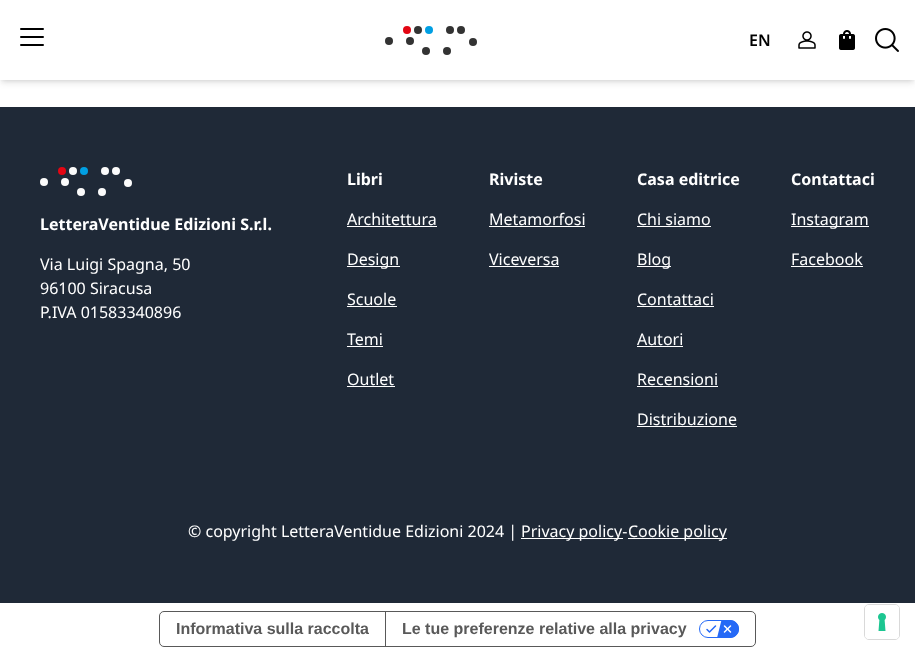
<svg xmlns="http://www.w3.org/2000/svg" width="915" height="655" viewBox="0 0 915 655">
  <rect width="100%" height="100%" fill="#fff"/>
  <path d="M2 4h911v76H2z" fill="#0000001a" filter="blur(2px)"/>
  <path d="M1 5h913v78H1z" fill="#0000001a" filter="blur(3px)"/>
  <path d="M0 0h915v80H0z" fill="#fff"/>
  <path d="M21 29H43M21 37H43M21 45H43" fill="none" stroke="#000" stroke-width="2" stroke-linecap="round" stroke-linejoin="round"/>
  <circle cx="407" cy="30" r="4" fill="#e30613"/>
  <circle cx="410" cy="41" r="4" fill="#333"/>
  <circle cx="426" cy="51" r="4" fill="#333"/>
  <circle cx="447" cy="51" r="4" fill="#333"/>
  <circle cx="473" cy="42" r="4" fill="#333"/>
  <circle cx="389" cy="41" r="4" fill="#333"/>
  <circle cx="418" cy="30" r="4" fill="#333"/>
  <circle cx="429" cy="30" r="4" fill="#009fe3"/>
  <circle cx="450" cy="30" r="4" fill="#333"/>
  <circle cx="461" cy="30" r="4" fill="#333"/>
  <image x="798" y="31" width="18" height="18" href="img/1.png"/>
  <image x="839" y="30" width="16" height="20" href="img/2.png"/>
  <image x="875" y="28" width="24" height="24" href="img/3.png"/>
  <path d="M0 107h915v496H0z" fill="#1f2937"/>
  <circle cx="62" cy="171" r="4" fill="#e30613"/>
  <circle cx="65" cy="182" r="4" fill="#fbfbfb"/>
  <circle cx="81" cy="192" r="4" fill="#fbfbfb"/>
  <circle cx="102" cy="192" r="4" fill="#fbfbfb"/>
  <circle cx="128" cy="183" r="4" fill="#fbfbfb"/>
  <circle cx="44" cy="182" r="4" fill="#fbfbfb"/>
  <circle cx="73" cy="171" r="4" fill="#fbfbfb"/>
  <circle cx="84" cy="171" r="4" fill="#009fe3"/>
  <circle cx="105" cy="171" r="4" fill="#fbfbfb"/>
  <circle cx="116" cy="171" r="4" fill="#fbfbfb"/>
  <path d="M347 226h90v1H347z" fill="#fff"/>
  <path d="M347 266h53v1H347z" fill="#fff"/>
  <path d="M347 306h50v1H347z" fill="#fff"/>
  <path d="M347 346h36v1H347z" fill="#fff"/>
  <path d="M347 386h48v1H347z" fill="#fff"/>
  <path d="M489 226h96v1H489z" fill="#fff"/>
  <path d="M489 266h70v1H489z" fill="#fff"/>
  <path d="M637 226h74v1H637z" fill="#fff"/>
  <path d="M637 266h34v1H637z" fill="#fff"/>
  <path d="M637 306h77v1H637z" fill="#fff"/>
  <path d="M637 346h46v1H637z" fill="#fff"/>
  <path d="M637 386h81v1H637z" fill="#fff"/>
  <path d="M637 426h100v1H637z" fill="#fff"/>
  <path d="M791 226h78v1H791z" fill="#fff"/>
  <path d="M791 266h72v1H791z" fill="#fff"/>
  <path d="M521 538h102v1H521z" fill="#fff"/>
  <path d="M628 538h99v1H628z" fill="#fff"/>
  <rect x="159.5" y="611.5" width="596" height="35" rx="4.5" fill="none" stroke="#595959"/>
  <path d="M385 612h1v34H385z" fill="#595959"/>
  <image x="699" y="620" width="40" height="18" href="img/4.png"/>
  <rect x="864.5" y="604.5" width="35" height="35" rx="4.5" fill="none" stroke="#d9d9d9"/>
  <rect x="865" y="605" width="34" height="34" rx="4" fill="#fff"/>
  <image x="878" y="613" width="8" height="18" href="img/5.png"/>
  <text x="749" y="46" font-family="Noto Sans" font-size="16" font-weight="600" fill="#000">EN</text>
  <text x="40" y="230" font-family="Noto Sans" font-size="16" font-weight="bold" fill="#fff">LetteraVentidue Edizioni S.r.l.</text>
  <g font-family="Noto Sans" font-size="16" fill="#fff">
    <text x="40" y="270">Via Luigi Spagna, 50</text>
    <text x="40" y="294">96100 Siracusa</text>
    <text x="40" y="318">P.IVA 01583340896</text>
  </g>
  <text x="347" y="185" font-family="Noto Sans" font-size="16" font-weight="bold" fill="#fff">Libri</text>
  <g font-family="Noto Sans" font-size="16" fill="#fff">
    <text x="347" y="225">Architettura</text>
    <text x="347" y="265">Design</text>
    <text x="347" y="305">Scuole</text>
    <text x="347" y="345">Temi</text>
    <text x="347" y="385">Outlet</text>
  </g>
  <text x="489" y="185" font-family="Noto Sans" font-size="16" font-weight="bold" fill="#fff">Riviste</text>
  <g font-family="Noto Sans" font-size="16" fill="#fff">
    <text x="489" y="225">Metamorfosi</text>
    <text x="489" y="265">Viceversa</text>
  </g>
  <text x="637" y="185" font-family="Noto Sans" font-size="16" font-weight="bold" fill="#fff">Casa editrice</text>
  <g font-family="Noto Sans" font-size="16" fill="#fff">
    <text x="637" y="225">Chi siamo</text>
    <text x="637" y="265">Blog</text>
    <text x="637" y="305">Contattaci</text>
    <text x="637" y="345">Autori</text>
    <text x="637" y="385">Recensioni</text>
    <text x="637" y="425">Distribuzione</text>
  </g>
  <text x="791" y="185" font-family="Noto Sans" font-size="16" font-weight="bold" fill="#fff">Contattaci</text>
  <g font-family="Noto Sans" font-size="16" fill="#fff">
    <text x="791" y="225">Instagram</text>
    <text x="791" y="265">Facebook</text>
    <text x="188" y="537">© copyright LetteraVentidue Edizioni 2024 |</text>
    <text x="521" y="537">Privacy policy-</text>
    <text x="628" y="537">Cookie policy</text>
  </g>
  <g font-family="Liberation Sans" font-size="16" font-weight="bold" fill="#595959">
    <text x="176" y="634">Informativa sulla raccolta</text>
    <text x="402" y="634">Le tue preferenze relative alla privacy</text>
  </g>
</svg>
